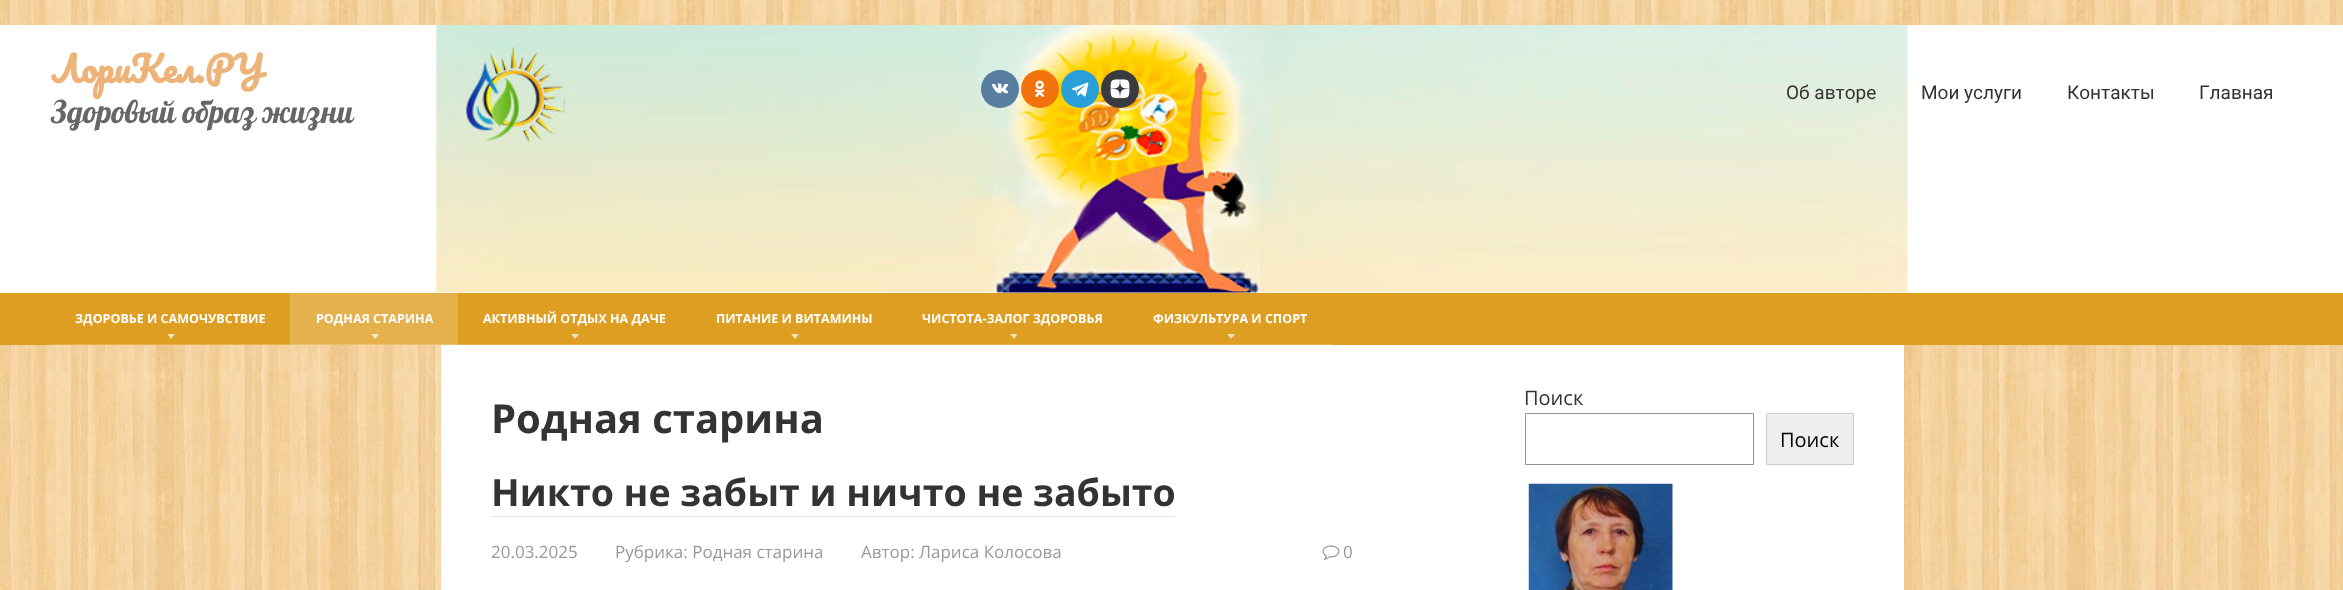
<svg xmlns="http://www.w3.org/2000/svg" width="2343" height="590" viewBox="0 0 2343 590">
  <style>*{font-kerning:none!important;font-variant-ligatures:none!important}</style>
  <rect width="100%" height="100%" fill="#fff"/>
  <image x="0" y="0" width="2343" height="590" href="img/1.png"/>
  <path d="M0 25h2343v268H0z" fill="#fff"/>
  <image x="436" y="25" width="1472" height="268" href="img/2.png"/>
  <circle cx="1000" cy="89" r="19" fill="#587e9f"/>
  <image x="991" y="83" width="18" height="11" href="img/3.png"/>
  <circle cx="1040" cy="89" r="19" fill="#f2720c"/>
  <image x="1034" y="80" width="11" height="17" href="img/4.png"/>
  <circle cx="1080" cy="89" r="19" fill="#289fd9"/>
  <image x="1071" y="82" width="18" height="15" href="img/5.png"/>
  <circle cx="1120" cy="89" r="19" fill="#383b3f"/>
  <image x="1110" y="79" width="20" height="20" href="img/6.png"/>
  <path d="M0 293h2343v52H0z" fill="#dd9e21"/>
  <path d="M50 344h240v1H50z" fill="#e4b14d"/>
  <path d="M167.5 334H175L171 339Z" fill="#f5e2bc"/>
  <path d="M290 293h168v51H290z" fill="#e4b14d"/>
  <path d="M290 344h168v1H290z" fill="#e9c171"/>
  <path d="M371 334H379L375 339Z" fill="#f7e8ca"/>
  <path d="M458 344h875v1H458z" fill="#e4b14d"/>
  <path d="M571 334H579L575 339Z" fill="#f5e2bc"/>
  <path d="M791 334H799L795 339Z" fill="#f5e2bc"/>
  <path d="M1010 334H1017.5L1014 339Z" fill="#f5e2bc"/>
  <path d="M1227.5 334H1235L1231 339Z" fill="#f5e2bc"/>
  <path d="M441 345h1463v245H441z" fill="#fff"/>
  <path d="M491 516h684v1H491z" fill="#e6e6e6"/>
  <image x="1322" y="545" width="18" height="15" href="img/7.png"/>
  <path d="M1525.5 413.5h228v51H1525.5z" fill="none" stroke="#949494"/>
  <path d="M1766.5 413.5h87v51H1766.5z" fill="#efefef" stroke="#ccc"/>
  <image x="1528" y="483" width="145" height="107" href="img/8.png"/>
  <text x="51" y="83" font-family="Pacifico" font-size="35" font-weight="bold" fill="#edb378">ЛориКел.РУ</text>
  <text x="51" y="123" font-family="Lobster" font-size="31.25" fill="#666">Здоровый образ жизни</text>
  <g font-family="Roboto" font-size="19" fill="#333">
    <text x="1786" y="99">Об авторе</text>
    <text x="1921" y="99">Мои услуги</text>
    <text x="2067" y="99">Контакты</text>
    <text x="2199" y="99">Главная</text>
  </g>
  <g font-family="Open Sans" font-size="12.5" font-weight="bold" fill="#fff">
    <text x="75" y="323">ЗДОРОВЬЕ И САМОЧУВСТВИЕ</text>
    <text x="316" y="323">РОДНАЯ СТАРИНА</text>
    <text x="483" y="323">АКТИВНЫЙ ОТДЫХ НА ДАЧЕ</text>
    <text x="716" y="323">ПИТАНИЕ И ВИТАМИНЫ</text>
    <text x="922" y="323">ЧИСТОТА-ЗАЛОГ ЗДОРОВЬЯ</text>
    <text x="1153" y="323">ФИЗКУЛЬТУРА И СПОРТ</text>
  </g>
  <text x="491" y="433" font-family="Open Sans" font-size="40" font-weight="bold" fill="#333">Родная старина</text>
  <text x="491" y="506" font-family="Open Sans" font-size="37.5" font-weight="bold" fill="#333">Никто не забыт и ничто не забыто</text>
  <g font-family="Open Sans" font-size="17" fill="#999">
    <text x="491" y="558">20.03.2025</text>
    <text x="615" y="558">Рубрика: Родная старина</text>
    <text x="861" y="558">Автор: Лариса Колосова</text>
    <text x="1343" y="558">0</text>
  </g>
  <text x="1524" y="405" font-family="Open Sans" font-size="20" fill="#333">Поиск</text>
  <text x="1780" y="447" font-family="Open Sans" font-size="20" fill="#000">Поиск</text>
</svg>
